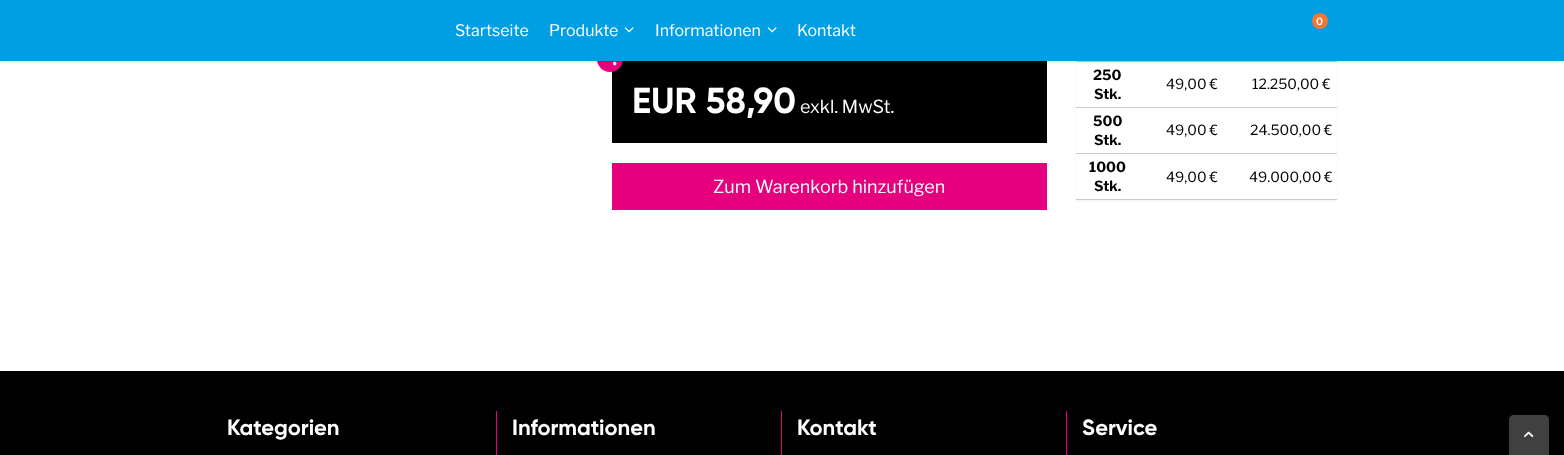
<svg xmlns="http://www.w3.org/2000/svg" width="1564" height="455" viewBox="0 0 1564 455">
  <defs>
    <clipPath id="clip1"><path d="M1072 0H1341V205H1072ZM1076-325H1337V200H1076Z" clip-rule="evenodd"/></clipPath>
  </defs>
  <rect width="100%" height="100%" fill="#fff"/>
  <path d="M612 61h435v82H612z" fill="#000"/>
  <circle cx="610" cy="59" r="13" fill="#e6007e"/>
  <g clip-path="url(#clip1)">
    <path d="M1076 -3h261v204H1076z" fill="#eee" filter="blur(1px)"/>
  </g>
  <path d="M1076 61h261v1H1076z" fill="#ccc"/>
  <path d="M0 1h1564v61H0z" fill="#0000001a" filter="blur(1px)"/>
  <path d="M0 0h1564v61H0z" fill="#009fe3"/>
  <circle cx="1320" cy="21" r="8" fill="#f17734"/>
  <image x="624" y="27" width="10" height="6" href="img/1.png"/>
  <image x="767" y="27" width="10" height="6" href="img/1.png"/>
  <path d="M612 163h435v47H612z" fill="#e6007e"/>
  <path d="M1076 107h261v1H1076z" fill="#ccc"/>
  <path d="M1076 153h261v1H1076z" fill="#ccc"/>
  <path d="M1076 199h261v1H1076z" fill="#ccc"/>
  <path d="M0 371h1564v84H0z" fill="#010101"/>
  <path d="M496 411h1v44H496z" fill="#e6007e"/>
  <path d="M781 411h1v44H781z" fill="#e6007e"/>
  <path d="M1066 411h1v44H1066z" fill="#e6007e"/>
  <path d="M1514 415H1544C1547 415 1549 417 1549 420V455H1509V420C1509 417 1511 415 1514 415Z" fill="#404040"/>
  <image x="1524" y="431" width="10" height="7" href="img/2.png"/>
  <text x="1316" y="25" font-family="Libre Franklin" font-size="10" font-weight="600" fill="#fff">0</text>
  <g font-family="Libre Franklin" font-size="16" fill="#fff">
    <text x="455" y="36">Startseite</text>
    <text x="549" y="36">Produkte</text>
    <text x="655" y="36">Informationen</text>
    <text x="797" y="36">Kontakt</text>
  </g>
  <text x="612" y="65" font-family="Gilroy" font-size="20" fill="#fff">.</text>
  <text x="632" y="113" font-family="Gilroy" font-size="36" fill="#fff">EUR 58,90</text>
  <g font-family="Libre Franklin" font-size="18" fill="#fff">
    <text x="800" y="113">exkl. MwSt.</text>
    <text x="713" y="193">Zum Warenkorb hinzufügen</text>
  </g>
  <g font-family="Libre Franklin" font-size="14" font-weight="bold" fill="#000">
    <text x="1093" y="80">250</text>
    <text x="1094" y="99">Stk.</text>
  </g>
  <g font-family="Libre Franklin" font-size="14" fill="#000">
    <text x="1166" y="89">49,00 €</text>
    <text x="1252" y="89">12.250,00 €</text>
  </g>
  <g font-family="Libre Franklin" font-size="14" font-weight="bold" fill="#000">
    <text x="1093" y="126">500</text>
    <text x="1094" y="145">Stk.</text>
  </g>
  <g font-family="Libre Franklin" font-size="14" fill="#000">
    <text x="1166" y="135">49,00 €</text>
    <text x="1250" y="135">24.500,00 €</text>
  </g>
  <g font-family="Libre Franklin" font-size="14" font-weight="bold" fill="#000">
    <text x="1089" y="172">1000</text>
    <text x="1094" y="191">Stk.</text>
  </g>
  <g font-family="Libre Franklin" font-size="14" fill="#000">
    <text x="1166" y="182">49,00 €</text>
    <text x="1249" y="182">49.000,00 €</text>
  </g>
  <g font-family="Gilroy" font-size="22" fill="#fff">
    <text x="227" y="435">Kategorien</text>
    <text x="512" y="435">Informationen</text>
    <text x="797" y="435">Kontakt</text>
    <text x="1082" y="435">Service</text>
  </g>
</svg>
